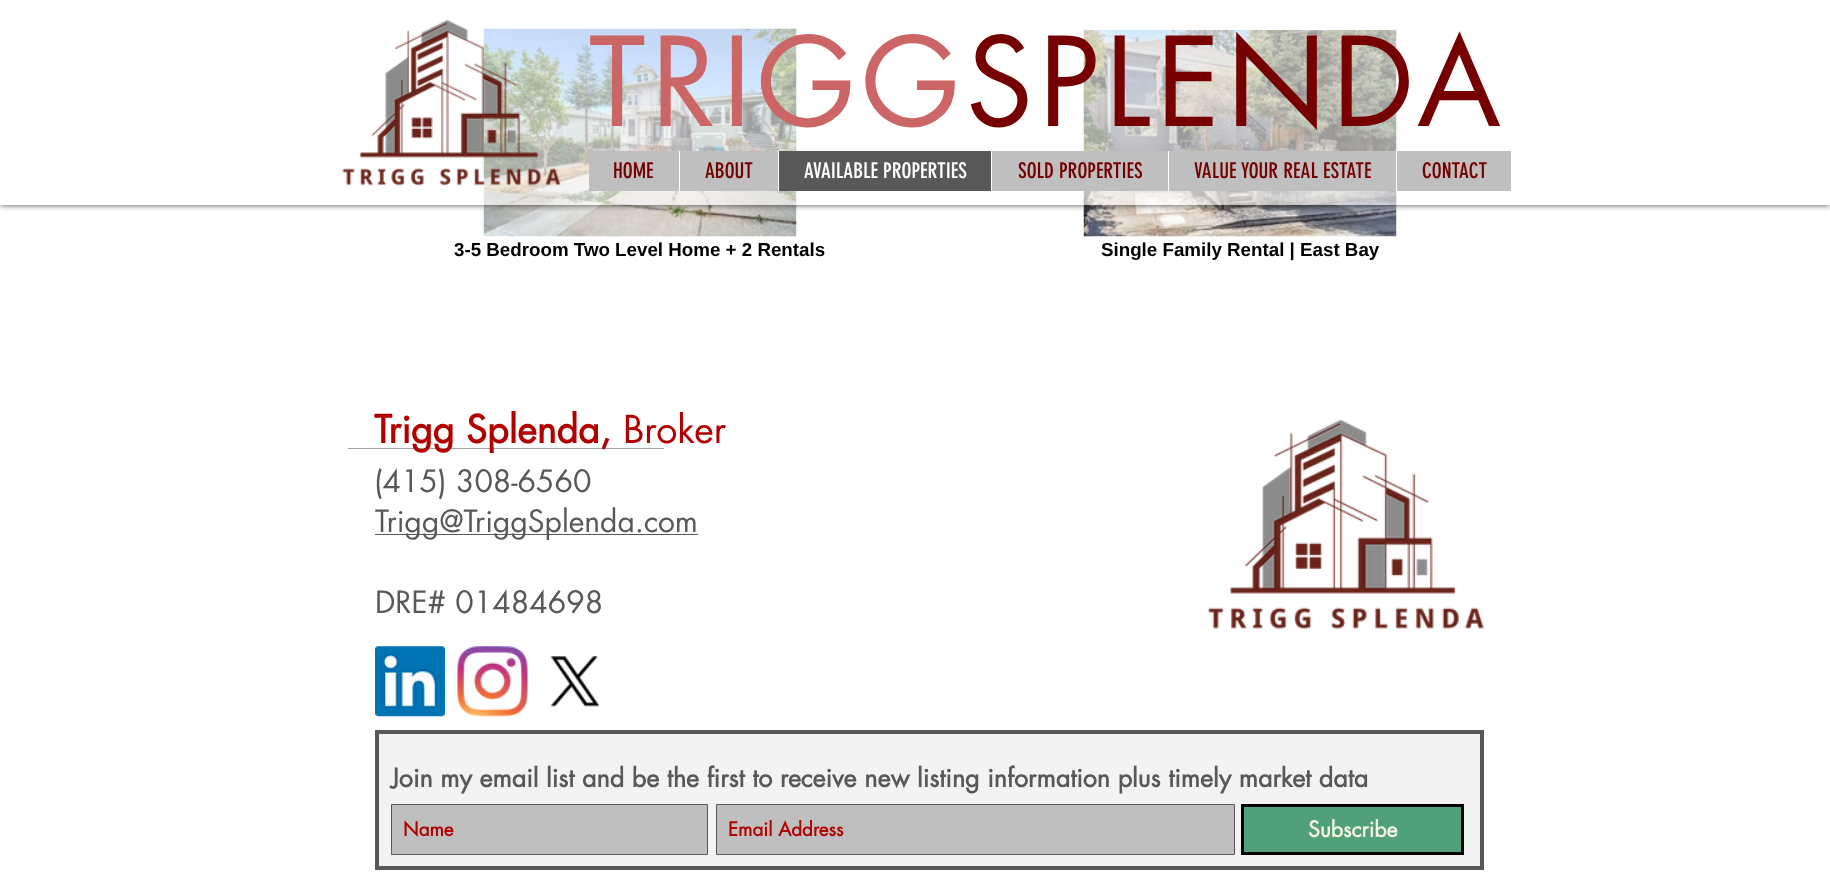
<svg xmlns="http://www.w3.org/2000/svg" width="1830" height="887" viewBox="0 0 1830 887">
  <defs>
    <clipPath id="clip1"><path d="M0 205h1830v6H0z"/></clipPath>
  </defs>
  <rect width="100%" height="100%" fill="#fff"/>
  <image x="483" y="28" width="314" height="209" href="img/2.png"/>
  <image x="1083" y="30" width="314" height="207" href="img/3.png"/>
  <g clip-path="url(#clip1)">
    <path d="M0 0h1830v205H0z" fill="#000000b3" filter="blur(3px)"/>
  </g>
  <path d="M483 28h914v177H483z" fill="#ffffff99"/>
  <image x="342" y="19" width="219" height="167" href="img/1.png"/>
  <path d="M589 151h922v40H589z" fill="#bfbfbf"/>
  <path d="M679 151h1v40H679z" fill="#fff"/>
  <path d="M779 151h212v40H779z" fill="#585858"/>
  <path d="M778 151h1v40H778z" fill="#fff"/>
  <path d="M991 151h1v40H991z" fill="#fff"/>
  <path d="M1168 151h1v40H1168z" fill="#fff"/>
  <path d="M1396 151h1v40H1396z" fill="#fff"/>
  <image x="1208" y="419" width="276" height="210" href="img/4.png"/>
  <path d="M348 448h316v1H348z" fill="#a3a3a3"/>
  <path d="M375 534h323v1H375z" fill="#585858"/>
  <image x="375" y="646" width="70" height="71" href="img/5.png"/>
  <image x="457" y="646" width="71" height="71" href="img/6.png"/>
  <image x="550" y="656" width="50" height="51" href="img/7.png"/>
  <path d="M377 732h1105v136H377z" fill="#f3f3f3" stroke="#585858" stroke-width="4"/>
  <path d="M391.5 804.5h316v50H391.5z" fill="#bfbfbf" stroke="#585858"/>
  <path d="M716.5 804.5h518v50H716.5z" fill="#bfbfbf" stroke="#585858"/>
  <path d="M1242.5 805.5h220v48H1242.5z" fill="#50a17a" stroke="#000" stroke-width="3"/>
  <text x="589" y="126" font-family="futura" font-size="120" letter-spacing="6" fill="#c66">TRIGG</text>
  <text x="966" y="126" font-family="futura" font-size="120" letter-spacing="6" fill="#760000">SPLENDA</text>
  <g font-family="'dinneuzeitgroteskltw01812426'" font-size="21.25" fill="#760000">
    <text x="613" y="178">HOME</text>
    <text x="705" y="178">ABOUT</text>
  </g>
  <text x="804" y="178" font-family="'dinneuzeitgroteskltw01812426'" font-size="21.25" fill="#fff">AVAILABLE PROPERTIES</text>
  <g font-family="'dinneuzeitgroteskltw01812426'" font-size="21.25" fill="#760000">
    <text x="1018" y="178">SOLD PROPERTIES</text>
    <text x="1194" y="178">VALUE YOUR REAL ESTATE</text>
    <text x="1422" y="178">CONTACT</text>
  </g>
  <g font-family="Liberation Sans" font-size="18.75" font-weight="bold" fill="#000">
    <text x="454" y="256">3-5 Bedroom Two Level Home + 2 Rentals</text>
    <text x="1101" y="256">Single Family Rental | East Bay</text>
  </g>
  <text x="374" y="443" font-family="futura" font-size="37.5" font-weight="bold" fill="#b20000">Trigg Splenda,</text>
  <text x="623" y="443" font-family="futura" font-size="37.5" fill="#b20000">Broker</text>
  <g font-family="futura" font-size="30" fill="#585858">
    <text x="374" y="492">(415) 308-6560</text>
    <text x="375" y="532">Trigg@TriggSplenda.com</text>
    <text x="375" y="613">DRE# 01484698</text>
  </g>
  <text x="391" y="787" font-family="futura" font-size="25" font-weight="bold" fill="#585858">Join my email list and be the first to receive new listing information plus timely market data</text>
  <g font-family="futura" font-size="18.75" font-weight="bold" fill="#b20000">
    <text x="403" y="836">Name</text>
    <text x="728" y="836">Email Address</text>
  </g>
  <text x="1308" y="837" font-family="futura" font-size="21.25" font-weight="bold" fill="#f7f5e1">Subscribe</text>
</svg>
